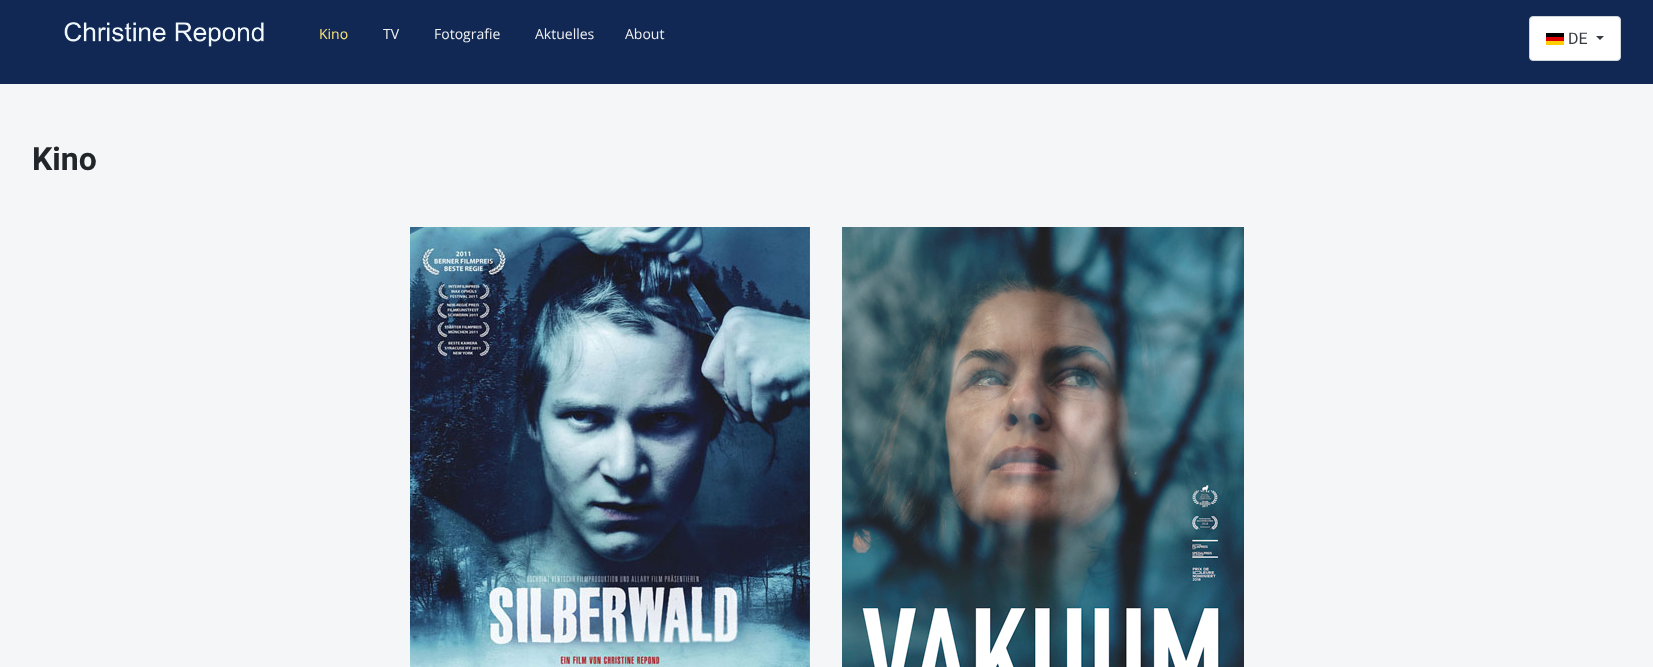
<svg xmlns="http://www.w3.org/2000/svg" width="1653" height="667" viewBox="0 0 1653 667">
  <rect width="100%" height="100%" fill="#f4f6f7"/>
  <path d="M0 0h1653v84H0z" fill="#112855"/>
  <image x="64" y="22" width="200" height="25" href="img/1.png"/>
  <rect x="1529.5" y="16.5" width="91" height="44" rx="3.5" fill="#fff" stroke="#ced4da"/>
  <image x="1546" y="33" width="18" height="12" href="img/2.png"/>
  <path d="M1596 36H1604L1600 40Z" fill="#353b41"/>
  <image x="410" y="227" width="400" height="440" href="img/3.png"/>
  <image x="842" y="227" width="402" height="440" href="img/4.png"/>
  <text x="319" y="39" font-family="Open Sans" font-size="14" fill="#ffe47a">Kino</text>
  <g font-family="Open Sans" font-size="14" fill="#f0f0f0">
    <text x="383" y="39">TV</text>
    <text x="434" y="39">Fotografie</text>
    <text x="535" y="39">Aktuelles</text>
    <text x="625" y="39">About</text>
  </g>
  <text x="1568" y="44" font-family="Roboto" font-size="16" fill="#353b41">DE</text>
  <text x="32" y="170" font-family="Roboto" font-size="32" font-weight="bold" fill="#22262a">Kino</text>
</svg>
